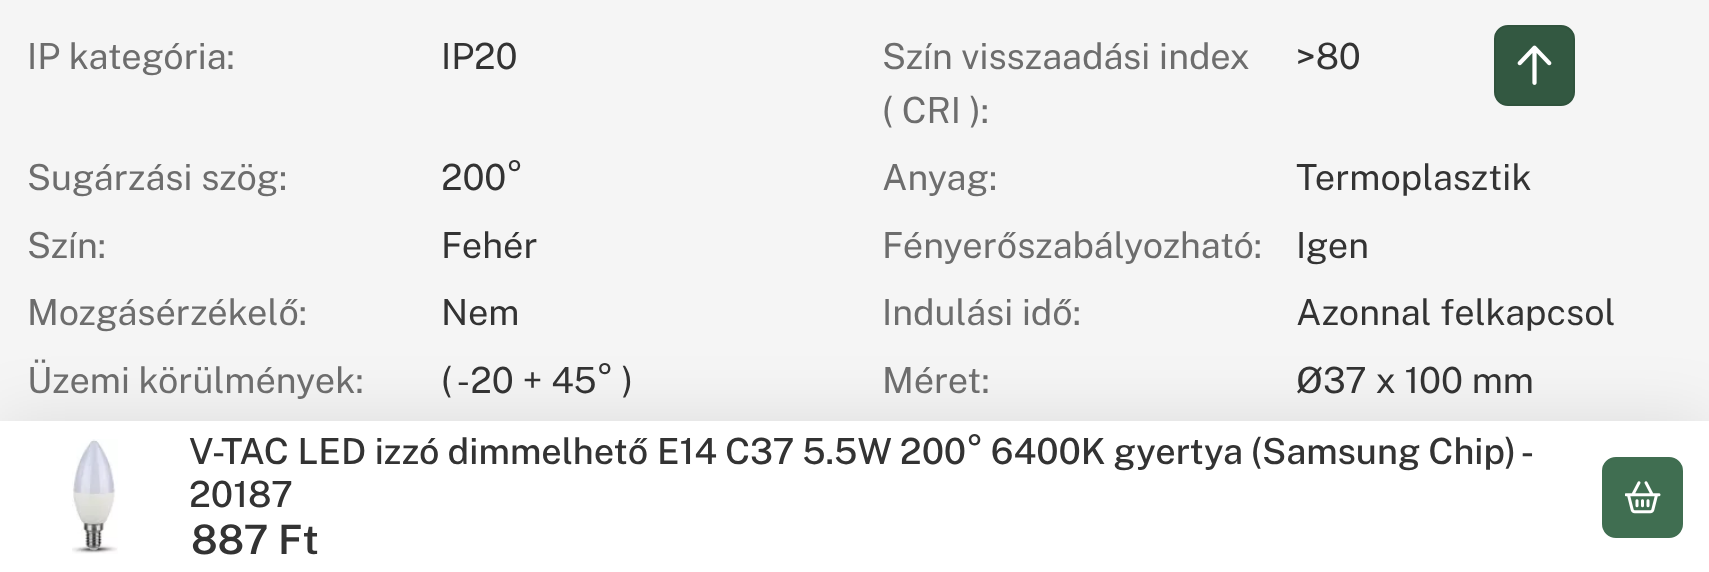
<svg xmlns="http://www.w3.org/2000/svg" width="1709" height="572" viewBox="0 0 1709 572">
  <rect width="100%" height="100%" fill="#f5f5f5"/>
  <rect x="1495" y="26" width="79" height="79" rx="13" fill="#335841" stroke="#30533d" stroke-width="2"/>
  <image x="1517" y="45" width="35" height="40" href="img/1.png"/>
  <path d="M0 421h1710v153H0z" fill="#0000001a" filter="blur(34px)"/>
  <path d="M0 421h1709v151H0z" fill="#fff"/>
  <image x="72" y="439" width="46" height="115" href="img/2.png"/>
  <rect x="1603" y="458" width="79" height="79" rx="13" fill="#406e51" stroke="#406e51" stroke-width="2"/>
  <image x="1625" y="481" width="36" height="33" href="img/3.png"/>
  <text x="27" y="69" font-family="Public Sans" font-size="36" fill="#6d6d6d">IP kategória:</text>
  <text x="441" y="69" font-family="Public Sans" font-size="36" fill="#333">IP20</text>
  <g font-family="Public Sans" font-size="36" fill="#6d6d6d">
    <text x="882" y="69">Szín visszaadási index</text>
    <text x="882" y="123">( CRI ):</text>
  </g>
  <text x="1296" y="69" font-family="Public Sans" font-size="36" fill="#333">&gt;80</text>
  <text x="27" y="190" font-family="Public Sans" font-size="36" fill="#6d6d6d">Sugárzási szög:</text>
  <text x="441" y="190" font-family="Public Sans" font-size="36" fill="#333">200°</text>
  <text x="882" y="190" font-family="Public Sans" font-size="36" fill="#6d6d6d">Anyag:</text>
  <text x="1296" y="190" font-family="Public Sans" font-size="36" fill="#333">Termoplasztik</text>
  <text x="27" y="258" font-family="Public Sans" font-size="36" fill="#6d6d6d">Szín:</text>
  <text x="441" y="258" font-family="Public Sans" font-size="36" fill="#333">Fehér</text>
  <text x="882" y="258" font-family="Public Sans" font-size="36" fill="#6d6d6d">Fényerőszabályozható:</text>
  <text x="1296" y="258" font-family="Public Sans" font-size="36" fill="#333">Igen</text>
  <text x="27" y="325" font-family="Public Sans" font-size="36" fill="#6d6d6d">Mozgásérzékelő:</text>
  <text x="441" y="325" font-family="Public Sans" font-size="36" fill="#333">Nem</text>
  <text x="882" y="325" font-family="Public Sans" font-size="36" fill="#6d6d6d">Indulási idő:</text>
  <text x="1296" y="325" font-family="Public Sans" font-size="36" fill="#333">Azonnal felkapcsol</text>
  <text x="27" y="393" font-family="Public Sans" font-size="36" fill="#6d6d6d">Üzemi körülmények:</text>
  <text x="441" y="393" font-family="Public Sans" font-size="36" fill="#333">( -20 + 45° )</text>
  <text x="882" y="393" font-family="Public Sans" font-size="36" fill="#6d6d6d">Méret:</text>
  <text x="1296" y="393" font-family="Public Sans" font-size="36" fill="#333">Ø37 x 100 mm</text>
  <g font-family="Public Sans" font-size="36" font-weight="500" fill="#333">
    <text x="189" y="464">V-TAC LED izzó dimmelhető</text>
    <text x="657" y="464" word-spacing="-0.75">E14 C37 5.5W 200° 6400K gyertya (Samsung Chip) -</text>
    <text x="189" y="507">20187</text>
  </g>
  <text x="191" y="554" font-family="Public Sans" font-size="40.5" font-weight="600" fill="#333">887 Ft</text>
</svg>
